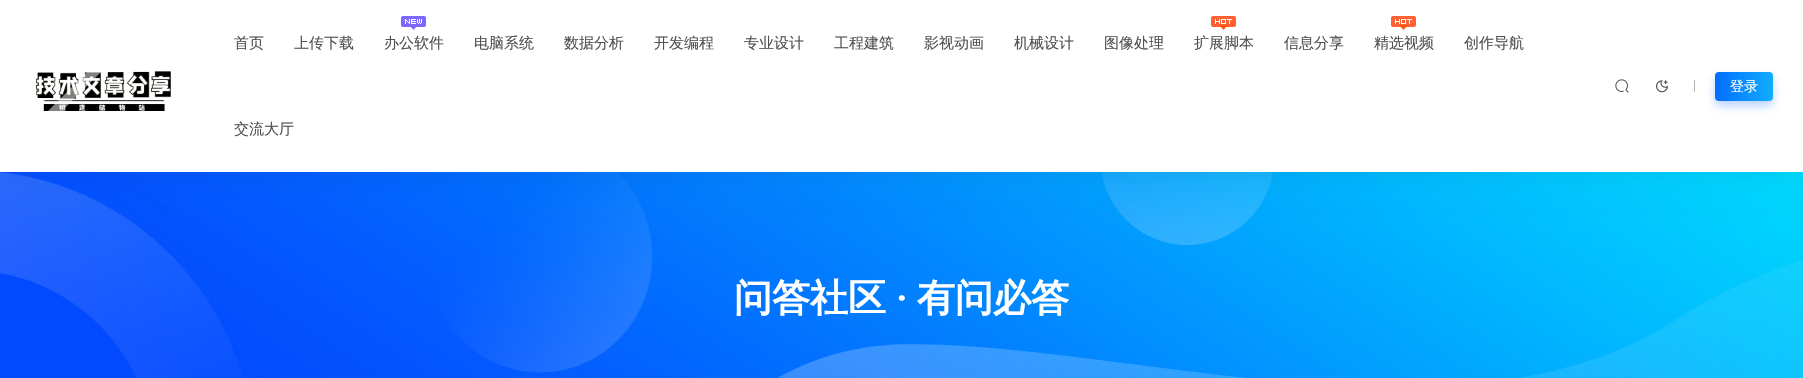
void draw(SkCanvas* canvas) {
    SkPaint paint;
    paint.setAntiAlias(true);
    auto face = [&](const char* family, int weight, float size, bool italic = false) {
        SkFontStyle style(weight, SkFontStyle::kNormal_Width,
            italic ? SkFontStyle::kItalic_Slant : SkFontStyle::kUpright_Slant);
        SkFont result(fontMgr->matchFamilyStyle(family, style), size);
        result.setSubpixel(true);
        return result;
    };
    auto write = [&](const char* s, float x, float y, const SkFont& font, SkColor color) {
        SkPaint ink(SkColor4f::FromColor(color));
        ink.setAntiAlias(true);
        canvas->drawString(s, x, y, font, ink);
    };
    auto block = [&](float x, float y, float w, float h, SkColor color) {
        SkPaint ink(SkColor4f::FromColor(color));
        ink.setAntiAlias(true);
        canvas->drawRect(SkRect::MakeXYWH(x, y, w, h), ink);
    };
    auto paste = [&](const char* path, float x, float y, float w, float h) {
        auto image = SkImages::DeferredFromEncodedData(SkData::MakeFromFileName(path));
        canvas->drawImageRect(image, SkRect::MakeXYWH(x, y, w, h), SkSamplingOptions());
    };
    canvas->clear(SK_ColorWHITE);
    paste("pic6.png", 0, 172, 1803, 206);
    paint.setColor(SkColorSetARGB(18, 0, 0, 0));
    paint.setMaskFilter(SkMaskFilter::MakeBlur(kNormal_SkBlurStyle, 15));
    canvas->drawRect(SkRect::MakeXYWH(0, 0, 1803, 172), paint);
    paint.setMaskFilter(nullptr);
    block(0, 0, 1803, 172, SK_ColorWHITE);
    paste("pic1.png", 35, 71, 136, 40);
    paint.setColor(SkColorSetARGB(128, 255, 255, 255));
    canvas->drawPath(SkPathBuilder().moveTo(47, 112).lineTo(145, 14).lineTo(152, 21).lineTo(54, 119).close().detach(), paint);
    auto kFont1 = face("WenQuanYi Zen Hei", 500, 15);
    write("首页", 234, 48, kFont1, SkColorSetRGB(80, 80, 80));
    write("上传下载", 294, 48, kFont1, SkColorSetRGB(80, 80, 80));
    paste("pic2.png", 401, 16, 25, 14);
    write("办公软件", 384, 48, kFont1, SkColorSetRGB(80, 80, 80));
    write("电脑系统", 474, 48, kFont1, SkColorSetRGB(80, 80, 80));
    write("数据分析", 564, 48, kFont1, SkColorSetRGB(80, 80, 80));
    write("开发编程", 654, 48, kFont1, SkColorSetRGB(80, 80, 80));
    write("专业设计", 744, 48, kFont1, SkColorSetRGB(80, 80, 80));
    write("工程建筑", 834, 48, kFont1, SkColorSetRGB(80, 80, 80));
    write("影视动画", 924, 48, kFont1, SkColorSetRGB(80, 80, 80));
    write("机械设计", 1014, 48, kFont1, SkColorSetRGB(80, 80, 80));
    write("图像处理", 1104, 48, kFont1, SkColorSetRGB(80, 80, 80));
    paste("pic3.png", 1211, 16, 25, 14);
    write("扩展脚本", 1194, 48, kFont1, SkColorSetRGB(80, 80, 80));
    write("信息分享", 1284, 48, kFont1, SkColorSetRGB(80, 80, 80));
    paste("pic3.png", 1391, 16, 25, 14);
    write("精选视频", 1374, 48, kFont1, SkColorSetRGB(80, 80, 80));
    write("创作导航", 1464, 48, kFont1, SkColorSetRGB(80, 80, 80));
    write("交流大厅", 234, 134, kFont1, SkColorSetRGB(80, 80, 80));
    paste("pic4.png", 1615, 79, 14, 14);
    paste("pic5.png", 1656, 80, 12, 13);
    block(1694, 80, 1, 12, SkColorSetRGB(179, 179, 179));
    paint.setColor(SkColorSetARGB(77, 16, 110, 253));
    paint.setMaskFilter(SkMaskFilter::MakeBlur(kNormal_SkBlurStyle, 5));
    canvas->drawRoundRect(SkRect::MakeXYWH(1715, 77, 58, 29), 4, 4, paint);
    paint.setMaskFilter(nullptr);
    {
        const SkColor colors[] = {SkColorSetRGB(0, 110, 255), SkColorSetRGB(19, 173, 255)};
        const float stops[] = {0, 1};
        const SkPoint ends[] = {{1715, 87}, {1773, 87}};
        paint.setShader(SkGradientShader::MakeLinear(ends, colors, stops, 2, SkTileMode::kClamp));
        paint.setAlpha(255);
    }
    canvas->drawRoundRect(SkRect::MakeXYWH(1715, 72, 58, 29), 4, 4, paint);
    auto kFont2 = face("WenQuanYi Zen Hei", 500, 14);
    write("登录", 1730, 91, kFont2, SK_ColorWHITE);
    auto kFont3 = face("WenQuanYi Zen Hei", 700, 38);
    write("问答社区", 734, 311, kFont3, SK_ColorWHITE);
    auto kFont4 = face("Roboto", 700, 38, true);
    write("·", 896, 311, kFont4, SK_ColorWHITE);
    write("有问必答", 917, 311, kFont3, SK_ColorWHITE);
}
